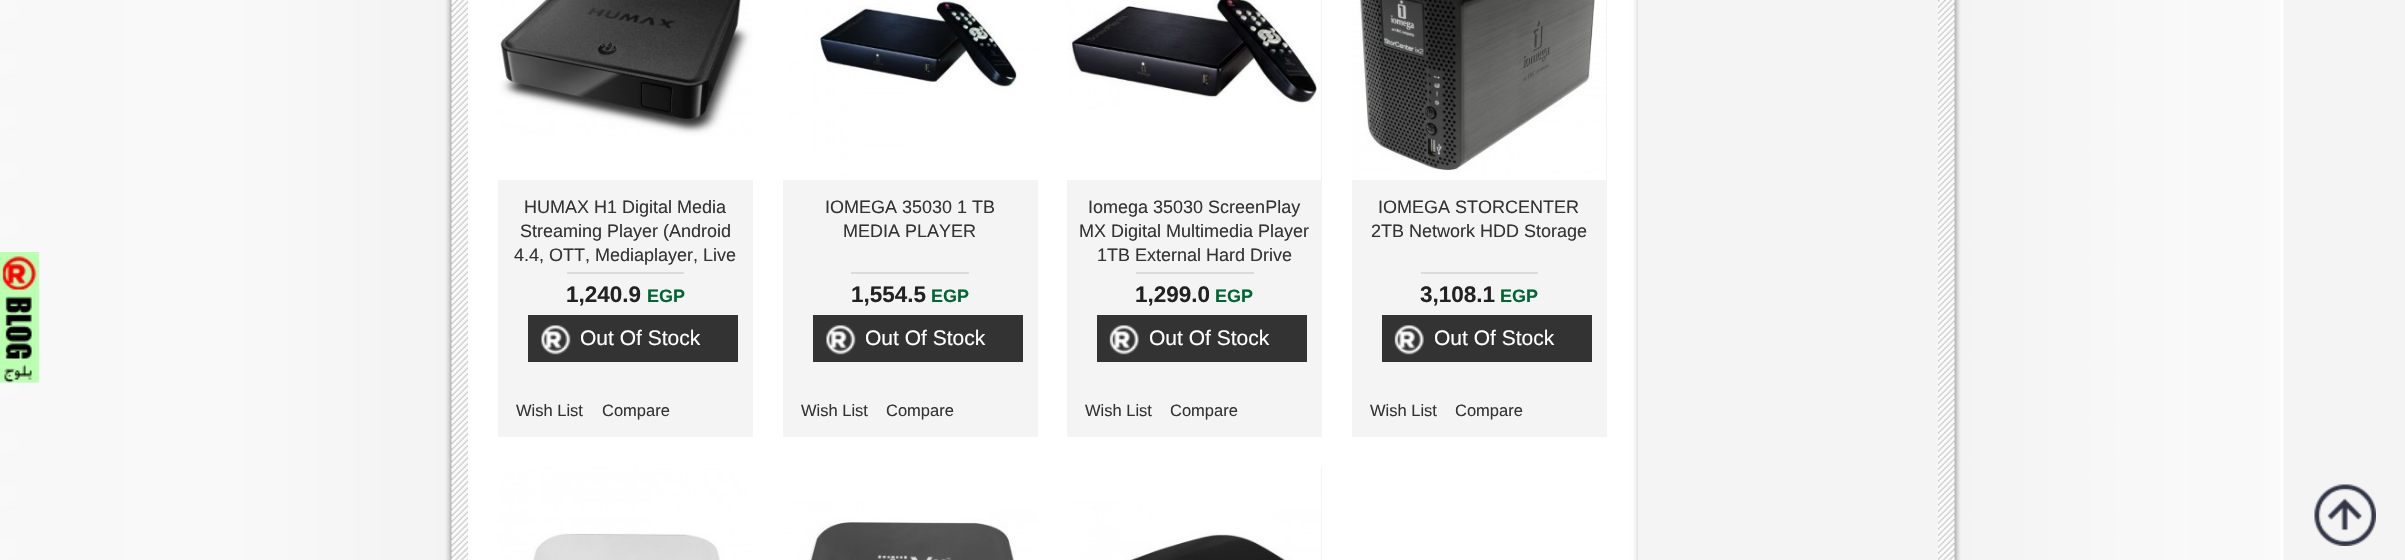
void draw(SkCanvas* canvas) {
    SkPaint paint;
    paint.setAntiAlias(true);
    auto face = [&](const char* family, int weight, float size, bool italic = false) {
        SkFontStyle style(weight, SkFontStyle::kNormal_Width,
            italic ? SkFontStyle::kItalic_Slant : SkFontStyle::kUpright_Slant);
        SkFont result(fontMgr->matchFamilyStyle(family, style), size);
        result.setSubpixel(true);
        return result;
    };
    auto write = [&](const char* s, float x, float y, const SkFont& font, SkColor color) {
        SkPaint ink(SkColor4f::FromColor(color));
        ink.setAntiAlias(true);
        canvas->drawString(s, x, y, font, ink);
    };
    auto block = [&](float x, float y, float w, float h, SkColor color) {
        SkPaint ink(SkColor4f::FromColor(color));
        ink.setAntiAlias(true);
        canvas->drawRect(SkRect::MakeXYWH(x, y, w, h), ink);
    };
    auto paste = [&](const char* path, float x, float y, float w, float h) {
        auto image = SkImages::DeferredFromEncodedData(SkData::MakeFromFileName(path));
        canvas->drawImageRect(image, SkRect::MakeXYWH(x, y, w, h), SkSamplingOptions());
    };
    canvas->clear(SkColorSetRGB(244, 244, 244));
    paste("pic1.png", 0, 0, 2284, 560);
    block(468, 0, 70, 560, SK_ColorWHITE);
    paste("pic2.png", 0, 252, 40, 131);
    block(498, 180, 255, 257, SkColorSetRGB(244, 244, 244));
    paste("pic3.png", 498, 0, 255, 180);
    auto kFont1 = face("Liberation Sans", 400, 18);
    write("HUMAX H1 Digital Media", 524, 213, kFont1, SkColorSetRGB(51, 51, 51));
    write("Streaming Player (Android", 520, 237, kFont1, SkColorSetRGB(51, 51, 51));
    write("4.4, OTT, Mediaplayer, Live", 514, 261, kFont1, SkColorSetRGB(51, 51, 51));
    block(567, 272, 117, 2, SkColorSetRGB(219, 219, 219));
    auto kFont2 = face("Liberation Sans", 700, 22.5f);
    write("1,240.9", 566, 302, kFont2, SkColorSetRGB(34, 34, 34));
    auto kFont3 = face("Liberation Sans", 700, 18);
    write("EGP", 647, 302, kFont3, SkColorSetRGB(0, 102, 51));
    block(528, 315, 210, 47, SkColorSetRGB(51, 51, 51));
    paste("pic4.png", 541, 325, 30, 30);
    auto kFont4 = face("Liberation Sans", 400, 21);
    write("Out Of Stock", 580, 345, kFont4, SK_ColorWHITE);
    auto kFont5 = face("Liberation Sans", 400, 16.5f);
    write("Wish List", 516, 416, kFont5, SkColorSetRGB(51, 51, 51));
    write("Compare", 602, 416, kFont5, SkColorSetRGB(51, 51, 51));
    block(783, 180, 255, 257, SkColorSetRGB(244, 244, 244));
    paste("pic5.png", 783, 0, 255, 180);
    write("IOMEGA 35030 1 TB", 825, 213, kFont1, SkColorSetRGB(51, 51, 51));
    write("MEDIA PLAYER", 843, 237, kFont1, SkColorSetRGB(51, 51, 51));
    block(851, 272, 118, 2, SkColorSetRGB(219, 219, 219));
    write("1,554.5", 851, 302, kFont2, SkColorSetRGB(34, 34, 34));
    write("EGP", 931, 302, kFont3, SkColorSetRGB(0, 102, 51));
    block(813, 315, 210, 47, SkColorSetRGB(51, 51, 51));
    paste("pic6.png", 826, 325, 30, 30);
    write("Out Of Stock", 865, 345, kFont4, SK_ColorWHITE);
    write("Wish List", 801, 416, kFont5, SkColorSetRGB(51, 51, 51));
    write("Compare", 886, 416, kFont5, SkColorSetRGB(51, 51, 51));
    block(1067, 0, 255, 437, SkColorSetRGB(244, 244, 244));
    paste("pic7.png", 1067, 0, 254, 180);
    write("Iomega 35030 ScreenPlay", 1088, 213, kFont1, SkColorSetRGB(51, 51, 51));
    write("MX Digital Multimedia Player", 1079, 237, kFont1, SkColorSetRGB(51, 51, 51));
    write("1TB External Hard Drive", 1097, 261, kFont1, SkColorSetRGB(51, 51, 51));
    block(1136, 272, 118, 2, SkColorSetRGB(219, 219, 219));
    write("1,299.0", 1135, 302, kFont2, SkColorSetRGB(34, 34, 34));
    write("EGP", 1215, 302, kFont3, SkColorSetRGB(0, 102, 51));
    block(1097, 315, 210, 47, SkColorSetRGB(51, 51, 51));
    paste("pic8.png", 1109, 325, 30, 30);
    write("Out Of Stock", 1149, 345, kFont4, SK_ColorWHITE);
    write("Wish List", 1085, 416, kFont5, SkColorSetRGB(51, 51, 51));
    write("Compare", 1170, 416, kFont5, SkColorSetRGB(51, 51, 51));
    block(1352, 0, 255, 437, SkColorSetRGB(244, 244, 244));
    paste("pic9.png", 1352, 0, 254, 180);
    write("IOMEGA STORCENTER", 1378, 213, kFont1, SkColorSetRGB(51, 51, 51));
    write("2TB Network HDD Storage", 1371, 237, kFont1, SkColorSetRGB(51, 51, 51));
    block(1421, 272, 117, 2, SkColorSetRGB(219, 219, 219));
    write("3,108.1", 1420, 302, kFont2, SkColorSetRGB(34, 34, 34));
    write("EGP", 1500, 302, kFont3, SkColorSetRGB(0, 102, 51));
    block(1382, 315, 210, 47, SkColorSetRGB(51, 51, 51));
    paste("pic10.png", 1394, 325, 30, 30);
    write("Out Of Stock", 1434, 345, kFont4, SK_ColorWHITE);
    write("Wish List", 1370, 416, kFont5, SkColorSetRGB(51, 51, 51));
    write("Compare", 1455, 416, kFont5, SkColorSetRGB(51, 51, 51));
    paste("pic11.png", 498, 467, 255, 93);
    paste("pic12.png", 783, 467, 255, 93);
    block(1321, 467, 1, 93, SkColorSetRGB(244, 244, 244));
    paste("pic13.png", 1067, 467, 254, 93);
    canvas->save();
    canvas->clipRect(SkRect::MakeXYWH(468, 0, 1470, 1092));
    paint.setColor(SK_ColorBLACK);
    paint.setMaskFilter(SkMaskFilter::MakeBlur(kNormal_SkBlurStyle, 5));
    canvas->drawRect(SkRect::MakeXYWH(1644, -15, 291, 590), paint);
    paint.setMaskFilter(nullptr);
    canvas->restore();
    block(1638, 0, 300, 560, SkColorSetRGB(244, 244, 244));
    paste("pic14.png", 2314, 484, 62, 62);
}
